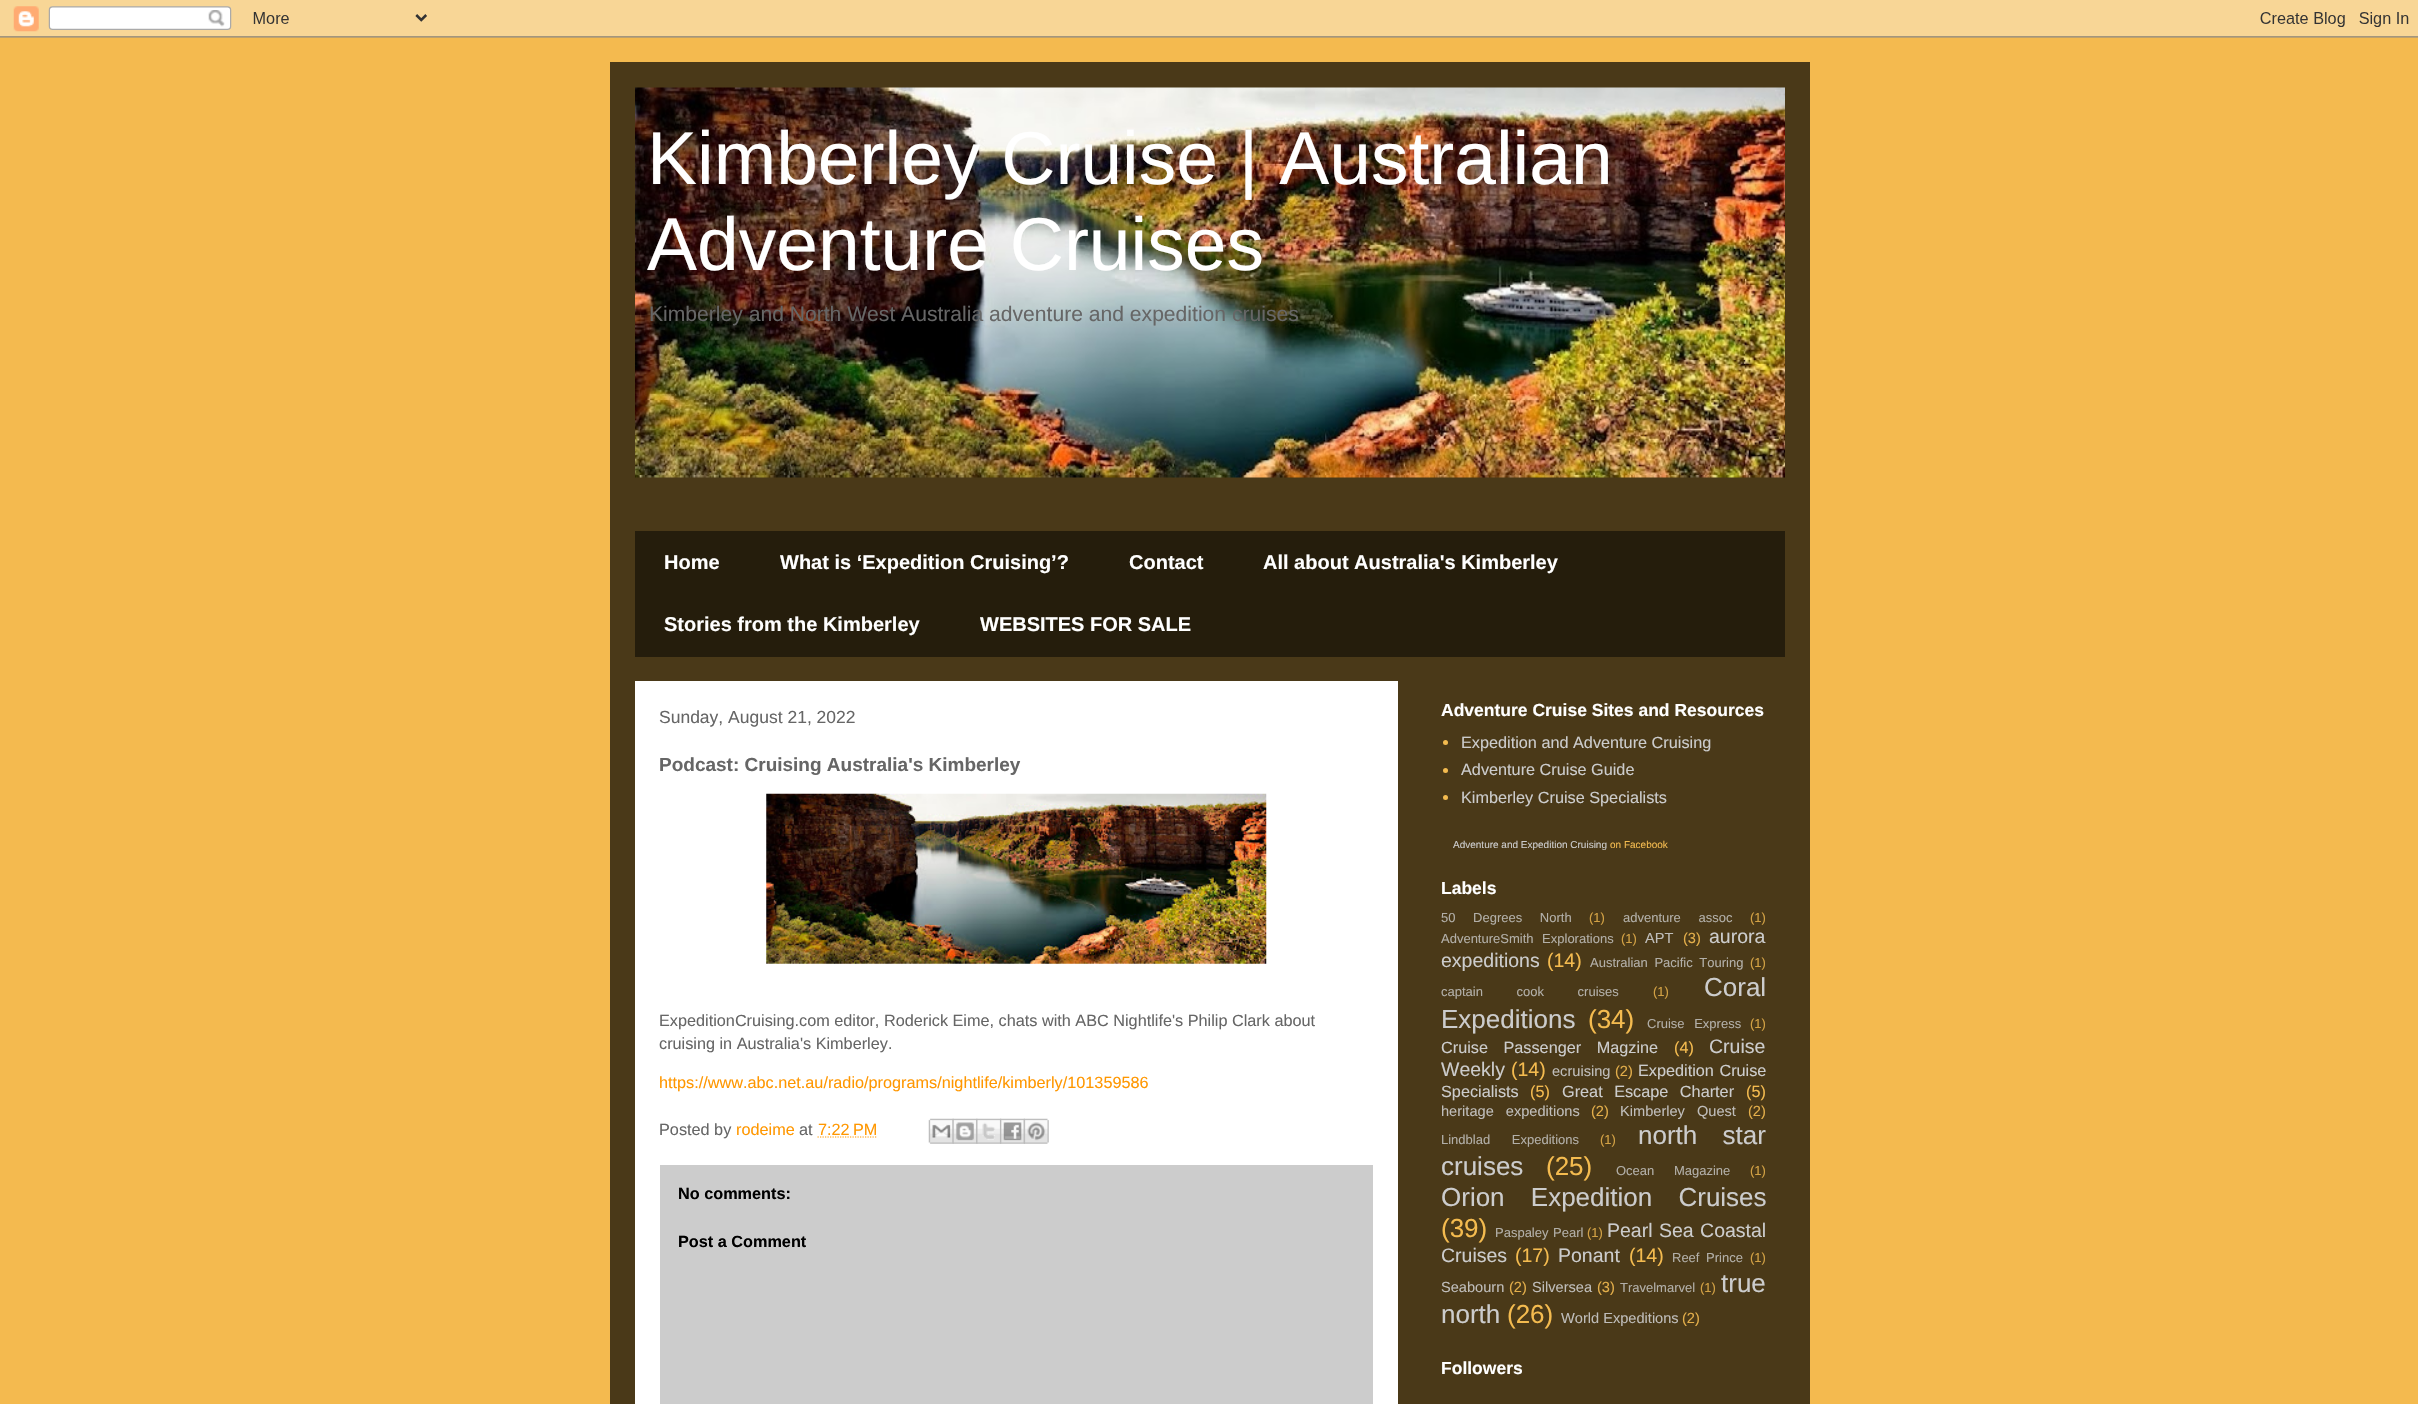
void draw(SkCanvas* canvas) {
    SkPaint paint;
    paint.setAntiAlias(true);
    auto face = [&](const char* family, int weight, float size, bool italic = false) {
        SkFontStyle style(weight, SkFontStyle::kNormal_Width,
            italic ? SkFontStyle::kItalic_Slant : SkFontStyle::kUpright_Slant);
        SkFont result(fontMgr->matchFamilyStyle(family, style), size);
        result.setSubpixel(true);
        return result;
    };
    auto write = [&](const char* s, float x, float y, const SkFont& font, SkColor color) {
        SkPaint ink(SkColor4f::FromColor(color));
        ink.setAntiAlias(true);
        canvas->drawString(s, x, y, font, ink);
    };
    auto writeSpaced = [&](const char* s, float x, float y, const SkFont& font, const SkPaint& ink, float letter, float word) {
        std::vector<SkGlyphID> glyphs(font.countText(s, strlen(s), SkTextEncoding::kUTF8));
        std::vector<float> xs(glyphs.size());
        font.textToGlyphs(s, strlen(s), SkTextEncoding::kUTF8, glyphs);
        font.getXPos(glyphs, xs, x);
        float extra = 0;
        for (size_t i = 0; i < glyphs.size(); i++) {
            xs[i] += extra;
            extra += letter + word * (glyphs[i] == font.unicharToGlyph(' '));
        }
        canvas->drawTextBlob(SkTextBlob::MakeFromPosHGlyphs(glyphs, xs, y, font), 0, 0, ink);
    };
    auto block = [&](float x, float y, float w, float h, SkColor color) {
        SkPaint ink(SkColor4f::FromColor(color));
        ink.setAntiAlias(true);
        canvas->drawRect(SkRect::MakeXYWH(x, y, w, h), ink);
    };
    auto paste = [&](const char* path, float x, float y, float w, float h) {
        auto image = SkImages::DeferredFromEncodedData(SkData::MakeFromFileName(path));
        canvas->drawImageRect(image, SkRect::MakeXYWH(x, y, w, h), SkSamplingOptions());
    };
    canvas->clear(SkColorSetRGB(244, 186, 79));
    paste("pic1.png", 0, 0, 2418, 38);
    block(610, 62, 1200, 1342, SkColorSetRGB(74, 57, 24));
    paste("pic2.png", 635, 87, 1150, 391);
    auto kFont1 = face("Liberation Sans", 400, 75);
    write("Kimberley Cruise | Australian", 647, 184, kFont1, SK_ColorWHITE);
    write("Adventure Cruises", 647, 270, kFont1, SK_ColorWHITE);
    auto kFont2 = face("Liberation Sans", 400, 21.1f);
    write("Kimberley and North West Australia adventure and expedition cruises", 649, 321, kFont2, SkColorSetRGB(102, 102, 102));
    block(635, 531, 1150, 126, SkColorSetRGB(37, 29, 12));
    auto kFont3 = face("Liberation Sans", 700, 20);
    write("Home", 664, 569, kFont3, SK_ColorWHITE);
    write("What is ‘Expedition Cruising’?", 780, 569, kFont3, SK_ColorWHITE);
    write("Contact", 1129, 569, kFont3, SK_ColorWHITE);
    write("All about Australia's Kimberley", 1263, 569, kFont3, SK_ColorWHITE);
    write("Stories from the Kimberley", 664, 631, kFont3, SK_ColorWHITE);
    write("WEBSITES FOR SALE", 980, 631, kFont3, SK_ColorWHITE);
    block(635, 681, 763, 723, SK_ColorWHITE);
    auto kFont4 = face("Liberation Sans", 400, 17.5f);
    write("Sunday, August 21, 2022", 659, 723, kFont4, SkColorSetRGB(102, 102, 102));
    auto kFont5 = face("Liberation Sans", 700, 19);
    write("Podcast: Cruising Australia's Kimberley", 659, 771, kFont5, SkColorSetRGB(102, 102, 102));
    paste("pic3.png", 766, 793, 501, 171);
    auto kFont6 = face("Liberation Sans", 400, 16.25f);
    write("ExpeditionCruising.com editor, Roderick Eime, chats with ABC Nightlife's Philip Clark about", 659, 1026, kFont6, SkColorSetRGB(102, 102, 102));
    write("cruising in Australia's Kimberley.", 659, 1049, kFont6, SkColorSetRGB(102, 102, 102));
    write("https://www.abc.net.au/radio/programs/nightlife/kimberly/101359586", 659, 1088, kFont6, SkColorSetRGB(255, 151, 0));
    write("Posted by", 659, 1135, kFont6, SkColorSetRGB(102, 102, 102));
    write("rodeime", 736, 1135, kFont6, SkColorSetRGB(255, 151, 0));
    write("at", 799, 1135, kFont6, SkColorSetRGB(102, 102, 102));
    write("7:22 PM", 818, 1135, kFont6, SkColorSetRGB(255, 151, 0));
    paint.setStyle(SkPaint::kStroke_Style);
    paint.setStrokeWidth(1.2f);
    paint.setColor(SkColorSetRGB(255, 151, 0));
    paint.setPathEffect(SkDashPathEffect::Make({{1.25f, 1.25f}}, 0));
    canvas->drawPath(SkPathBuilder().moveTo(817.5f, 1137).lineTo(877, 1137).detach(), paint);
    paint.setPathEffect(nullptr);
    paste("pic4.png", 928, 1118, 26, 26);
    paste("pic5.png", 952, 1118, 26, 26);
    paste("pic6.png", 976, 1118, 26, 26);
    paste("pic7.png", 1000, 1118, 25, 26);
    paste("pic8.png", 1023, 1118, 26, 26);
    block(660, 1165, 713, 239, SkColorSetRGB(204, 204, 204));
    auto kFont7 = face("Liberation Sans", 700, 16.25f);
    write("No comments:", 678, 1199, kFont7, SK_ColorBLACK);
    write("Post a Comment", 678, 1247, kFont7, SK_ColorBLACK);
    auto kFont8 = face("Liberation Sans", 700, 17.5f);
    write("Adventure Cruise Sites and Resources", 1441, 716, kFont8, SK_ColorWHITE);
    paint.setStyle(SkPaint::kFill_Style);
    paint.setColor(SkColorSetRGB(244, 187, 79));
    canvas->drawCircle(1445.5f, 742.5f, 2.5f, paint);
    write("Expedition and Adventure Cruising", 1461, 748, kFont6, SkColorSetRGB(204, 204, 204));
    canvas->drawCircle(1445.5f, 770.5f, 2.5f, paint);
    write("Adventure Cruise Guide", 1461, 775, kFont6, SkColorSetRGB(204, 204, 204));
    canvas->drawCircle(1445.5f, 797.5f, 2.5f, paint);
    write("Kimberley Cruise Specialists", 1461, 803, kFont6, SkColorSetRGB(204, 204, 204));
    auto kFont9 = face("Liberation Sans", 400, 10);
    write("Adventure and Expedition Cruising", 1453, 848, kFont9, SkColorSetRGB(204, 204, 204));
    write("on Facebook", 1610, 848, kFont9, SkColorSetRGB(244, 187, 79));
    write("Labels", 1441, 894, kFont8, SK_ColorWHITE);
    auto kFont10 = face("Liberation Sans", 400, 13);
    paint.setColor(SkColorSetRGB(178, 175, 168));
    writeSpaced("50 Degrees North", 1441, 922, kFont10, paint, 0, 14);
    write("(1)", 1589, 922, kFont10, SkColorSetRGB(210, 161, 68));
    writeSpaced("adventure assoc", 1623, 922, kFont10, paint, 0, 14);
    write("(1)", 1750, 922, kFont10, SkColorSetRGB(210, 161, 68));
    writeSpaced("AdventureSmith Explorations", 1441, 943, kFont10, paint, 0, 5);
    write("(1)", 1621, 943, kFont10, SkColorSetRGB(210, 161, 68));
    auto kFont11 = face("Liberation Sans", 400, 14.6f);
    write("APT", 1645, 943, kFont11, SkColorSetRGB(191, 189, 186));
    write("(3)", 1683, 943, kFont11, SkColorSetRGB(227, 174, 74));
    auto kFont12 = face("Liberation Sans", 400, 19.5f);
    write("aurora", 1709, 943, kFont12, SkColorSetRGB(204, 204, 204));
    write("expeditions", 1441, 967, kFont12, SkColorSetRGB(204, 204, 204));
    write("(14)", 1547, 967, kFont12, SkColorSetRGB(244, 187, 79));
    writeSpaced("Australian Pacific Touring", 1590, 967, kFont10, paint, 0, 3);
    write("(1)", 1750, 967, kFont10, SkColorSetRGB(210, 161, 68));
    writeSpaced("captain cook cruises", 1441, 996, kFont10, paint, 0, 30);
    write("(1)", 1653, 996, kFont10, SkColorSetRGB(210, 161, 68));
    auto kFont13 = face("Liberation Sans", 400, 26);
    write("Coral", 1704, 996, kFont13, SkColorSetRGB(204, 204, 204));
    write("Expeditions", 1441, 1028, kFont13, SkColorSetRGB(204, 204, 204));
    write("(34)", 1588, 1028, kFont13, SkColorSetRGB(244, 187, 79));
    writeSpaced("Cruise Express", 1647, 1028, kFont10, paint, 0, 6);
    write("(1)", 1750, 1028, kFont10, SkColorSetRGB(210, 161, 68));
    paint.setColor(SkColorSetRGB(204, 204, 204));
    writeSpaced("Cruise Passenger Magzine", 1441, 1053, kFont6, paint, 0, 11);
    write("(4)", 1674, 1053, kFont6, SkColorSetRGB(244, 187, 79));
    write("Cruise", 1709, 1053, kFont12, SkColorSetRGB(204, 204, 204));
    write("Weekly", 1441, 1076, kFont12, SkColorSetRGB(204, 204, 204));
    write("(14)", 1511, 1076, kFont12, SkColorSetRGB(244, 187, 79));
    write("ecruising", 1552, 1076, kFont11, SkColorSetRGB(191, 189, 186));
    write("(2)", 1615, 1076, kFont11, SkColorSetRGB(227, 174, 74));
    writeSpaced("Expedition Cruise", 1638, 1076, kFont6, paint, 0, 1);
    write("Specialists", 1441, 1097, kFont6, SkColorSetRGB(204, 204, 204));
    write("(5)", 1530, 1097, kFont6, SkColorSetRGB(244, 187, 79));
    writeSpaced("Great Escape Charter", 1562, 1097, kFont6, paint, 0, 7);
    write("(5)", 1746, 1097, kFont6, SkColorSetRGB(244, 187, 79));
    paint.setColor(SkColorSetRGB(191, 189, 186));
    writeSpaced("heritage expeditions", 1441, 1116, kFont11, paint, 0, 8);
    write("(2)", 1591, 1116, kFont11, SkColorSetRGB(227, 174, 74));
    writeSpaced("Kimberley Quest", 1620, 1116, kFont11, paint, 0, 8);
    write("(2)", 1748, 1116, kFont11, SkColorSetRGB(227, 174, 74));
    paint.setColor(SkColorSetRGB(178, 175, 168));
    writeSpaced("Lindblad Expeditions", 1441, 1144, kFont10, paint, 0, 18);
    write("(1)", 1600, 1144, kFont10, SkColorSetRGB(210, 161, 68));
    paint.setColor(SkColorSetRGB(204, 204, 204));
    writeSpaced("north star", 1638, 1144, kFont13, paint, 0, 18);
    write("cruises", 1441, 1175, kFont13, SkColorSetRGB(204, 204, 204));
    write("(25)", 1546, 1175, kFont13, SkColorSetRGB(244, 187, 79));
    paint.setColor(SkColorSetRGB(178, 175, 168));
    writeSpaced("Ocean Magazine", 1616, 1175, kFont10, paint, 0, 16);
    write("(1)", 1750, 1175, kFont10, SkColorSetRGB(210, 161, 68));
    paint.setColor(SkColorSetRGB(204, 204, 204));
    writeSpaced("Orion Expedition Cruises", 1441, 1206, kFont13, paint, 0, 19);
    write("(39)", 1441, 1237, kFont13, SkColorSetRGB(244, 187, 79));
    paint.setColor(SkColorSetRGB(178, 175, 168));
    writeSpaced("Paspaley Pearl", 1495, 1237, kFont10, paint, 0, 1);
    write("(1)", 1587, 1237, kFont10, SkColorSetRGB(210, 161, 68));
    paint.setColor(SkColorSetRGB(204, 204, 204));
    writeSpaced("Pearl Sea Coastal", 1607, 1237, kFont12, paint, 0, 1);
    write("Cruises", 1441, 1262, kFont12, SkColorSetRGB(204, 204, 204));
    write("(17)", 1515, 1262, kFont12, SkColorSetRGB(244, 187, 79));
    write("Ponant", 1558, 1262, kFont12, SkColorSetRGB(204, 204, 204));
    write("(14)", 1629, 1262, kFont12, SkColorSetRGB(244, 187, 79));
    paint.setColor(SkColorSetRGB(178, 175, 168));
    writeSpaced("Reef Prince", 1672, 1262, kFont10, paint, 0, 3);
    write("(1)", 1750, 1262, kFont10, SkColorSetRGB(210, 161, 68));
    write("Seabourn", 1441, 1292, kFont11, SkColorSetRGB(191, 189, 186));
    write("(2)", 1509, 1292, kFont11, SkColorSetRGB(227, 174, 74));
    write("Silversea", 1532, 1292, kFont11, SkColorSetRGB(191, 189, 186));
    write("(3)", 1597, 1292, kFont11, SkColorSetRGB(227, 174, 74));
    write("Travelmarvel", 1620, 1292, kFont10, SkColorSetRGB(178, 175, 168));
    write("(1)", 1700, 1292, kFont10, SkColorSetRGB(210, 161, 68));
    write("true", 1721, 1292, kFont13, SkColorSetRGB(204, 204, 204));
    write("north", 1441, 1323, kFont13, SkColorSetRGB(204, 204, 204));
    write("(26)", 1507, 1323, kFont13, SkColorSetRGB(244, 187, 79));
    write("World Expeditions", 1561, 1323, kFont11, SkColorSetRGB(191, 189, 186));
    write("(2)", 1682, 1323, kFont11, SkColorSetRGB(227, 174, 74));
    write("Followers", 1441, 1374, kFont8, SK_ColorWHITE);
}
